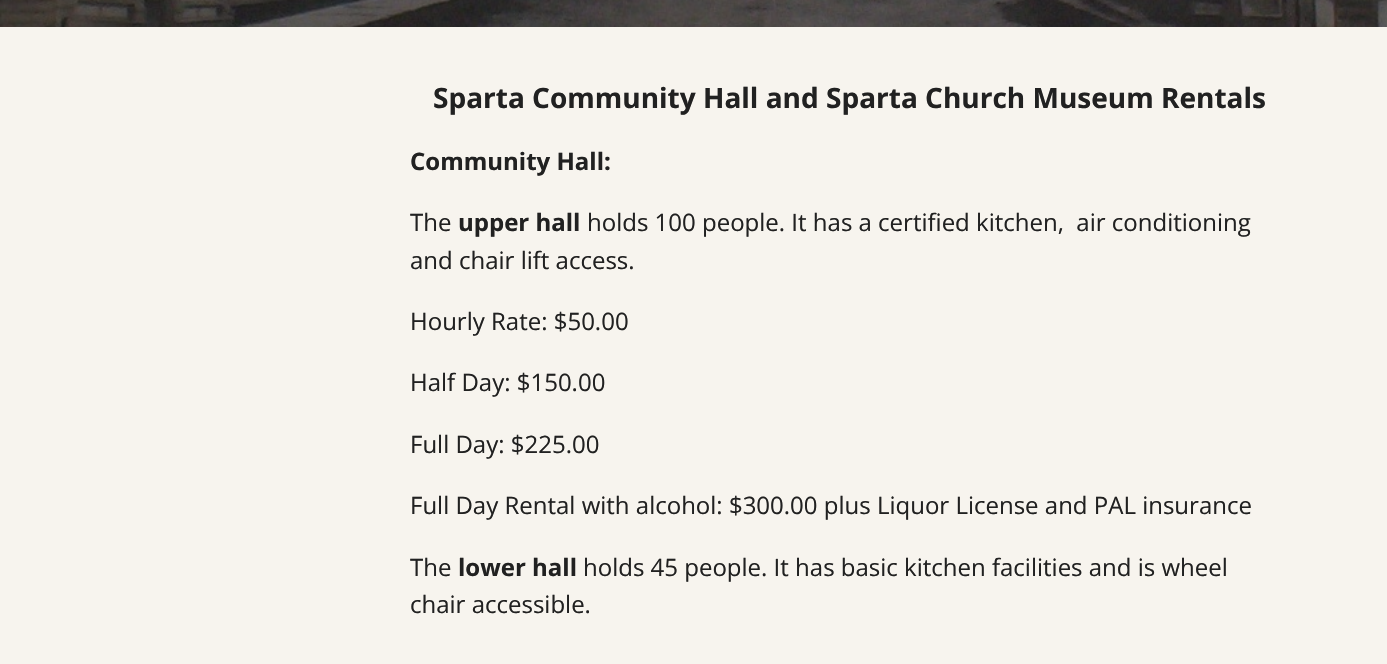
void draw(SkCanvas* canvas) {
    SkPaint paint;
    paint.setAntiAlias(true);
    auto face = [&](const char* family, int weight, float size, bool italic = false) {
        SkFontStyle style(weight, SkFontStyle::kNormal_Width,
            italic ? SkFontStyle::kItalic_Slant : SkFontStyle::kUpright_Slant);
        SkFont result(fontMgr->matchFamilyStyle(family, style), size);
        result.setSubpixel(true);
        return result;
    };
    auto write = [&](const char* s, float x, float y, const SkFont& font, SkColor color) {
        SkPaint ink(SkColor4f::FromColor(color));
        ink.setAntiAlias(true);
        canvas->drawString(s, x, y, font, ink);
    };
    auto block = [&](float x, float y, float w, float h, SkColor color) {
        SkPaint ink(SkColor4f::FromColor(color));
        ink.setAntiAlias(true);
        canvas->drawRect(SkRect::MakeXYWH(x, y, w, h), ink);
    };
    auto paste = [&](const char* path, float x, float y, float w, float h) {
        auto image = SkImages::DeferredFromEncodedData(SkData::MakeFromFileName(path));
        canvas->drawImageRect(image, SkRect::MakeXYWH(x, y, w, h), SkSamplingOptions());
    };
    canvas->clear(SK_ColorWHITE);
    paste("pic1.png", 0, 0, 1387, 27);
    block(0, 27, 1387, 637, SkColorSetRGB(247, 244, 238));
    auto kFont1 = face("Open Sans", 700, 28);
    write("Sparta Community Hall and Sparta Church Museum Rentals", 433, 108, kFont1, SkColorSetRGB(33, 33, 33));
    auto kFont2 = face("Open Sans", 700, 24);
    write("Community Hall:", 410, 170, kFont2, SkColorSetRGB(33, 33, 33));
    auto kFont3 = face("Open Sans", 400, 24);
    write("The", 410, 231, kFont3, SkColorSetRGB(33, 33, 33));
    write("upper hall", 458, 231, kFont2, SkColorSetRGB(33, 33, 33));
    write("holds 100 people. It has a certified kitchen,  air conditioning", 587, 231, kFont3, SkColorSetRGB(33, 33, 33));
    write("and chair lift access.", 410, 269, kFont3, SkColorSetRGB(33, 33, 33));
    write("Hourly Rate: $50.00", 410, 330, kFont3, SkColorSetRGB(33, 33, 33));
    write("Half Day: $150.00", 410, 391, kFont3, SkColorSetRGB(33, 33, 33));
    write("Full Day: $225.00", 410, 453, kFont3, SkColorSetRGB(33, 33, 33));
    write("Full Day Rental with alcohol: $300.00 plus Liquor License and PAL insurance", 410, 514, kFont3, SkColorSetRGB(33, 33, 33));
    write("The", 410, 576, kFont3, SkColorSetRGB(33, 33, 33));
    write("lower hall", 458, 576, kFont2, SkColorSetRGB(33, 33, 33));
    write("holds 45 people. It has basic kitchen facilities and is wheel", 583, 576, kFont3, SkColorSetRGB(33, 33, 33));
    write("chair accessible.", 410, 613, kFont3, SkColorSetRGB(33, 33, 33));
}
